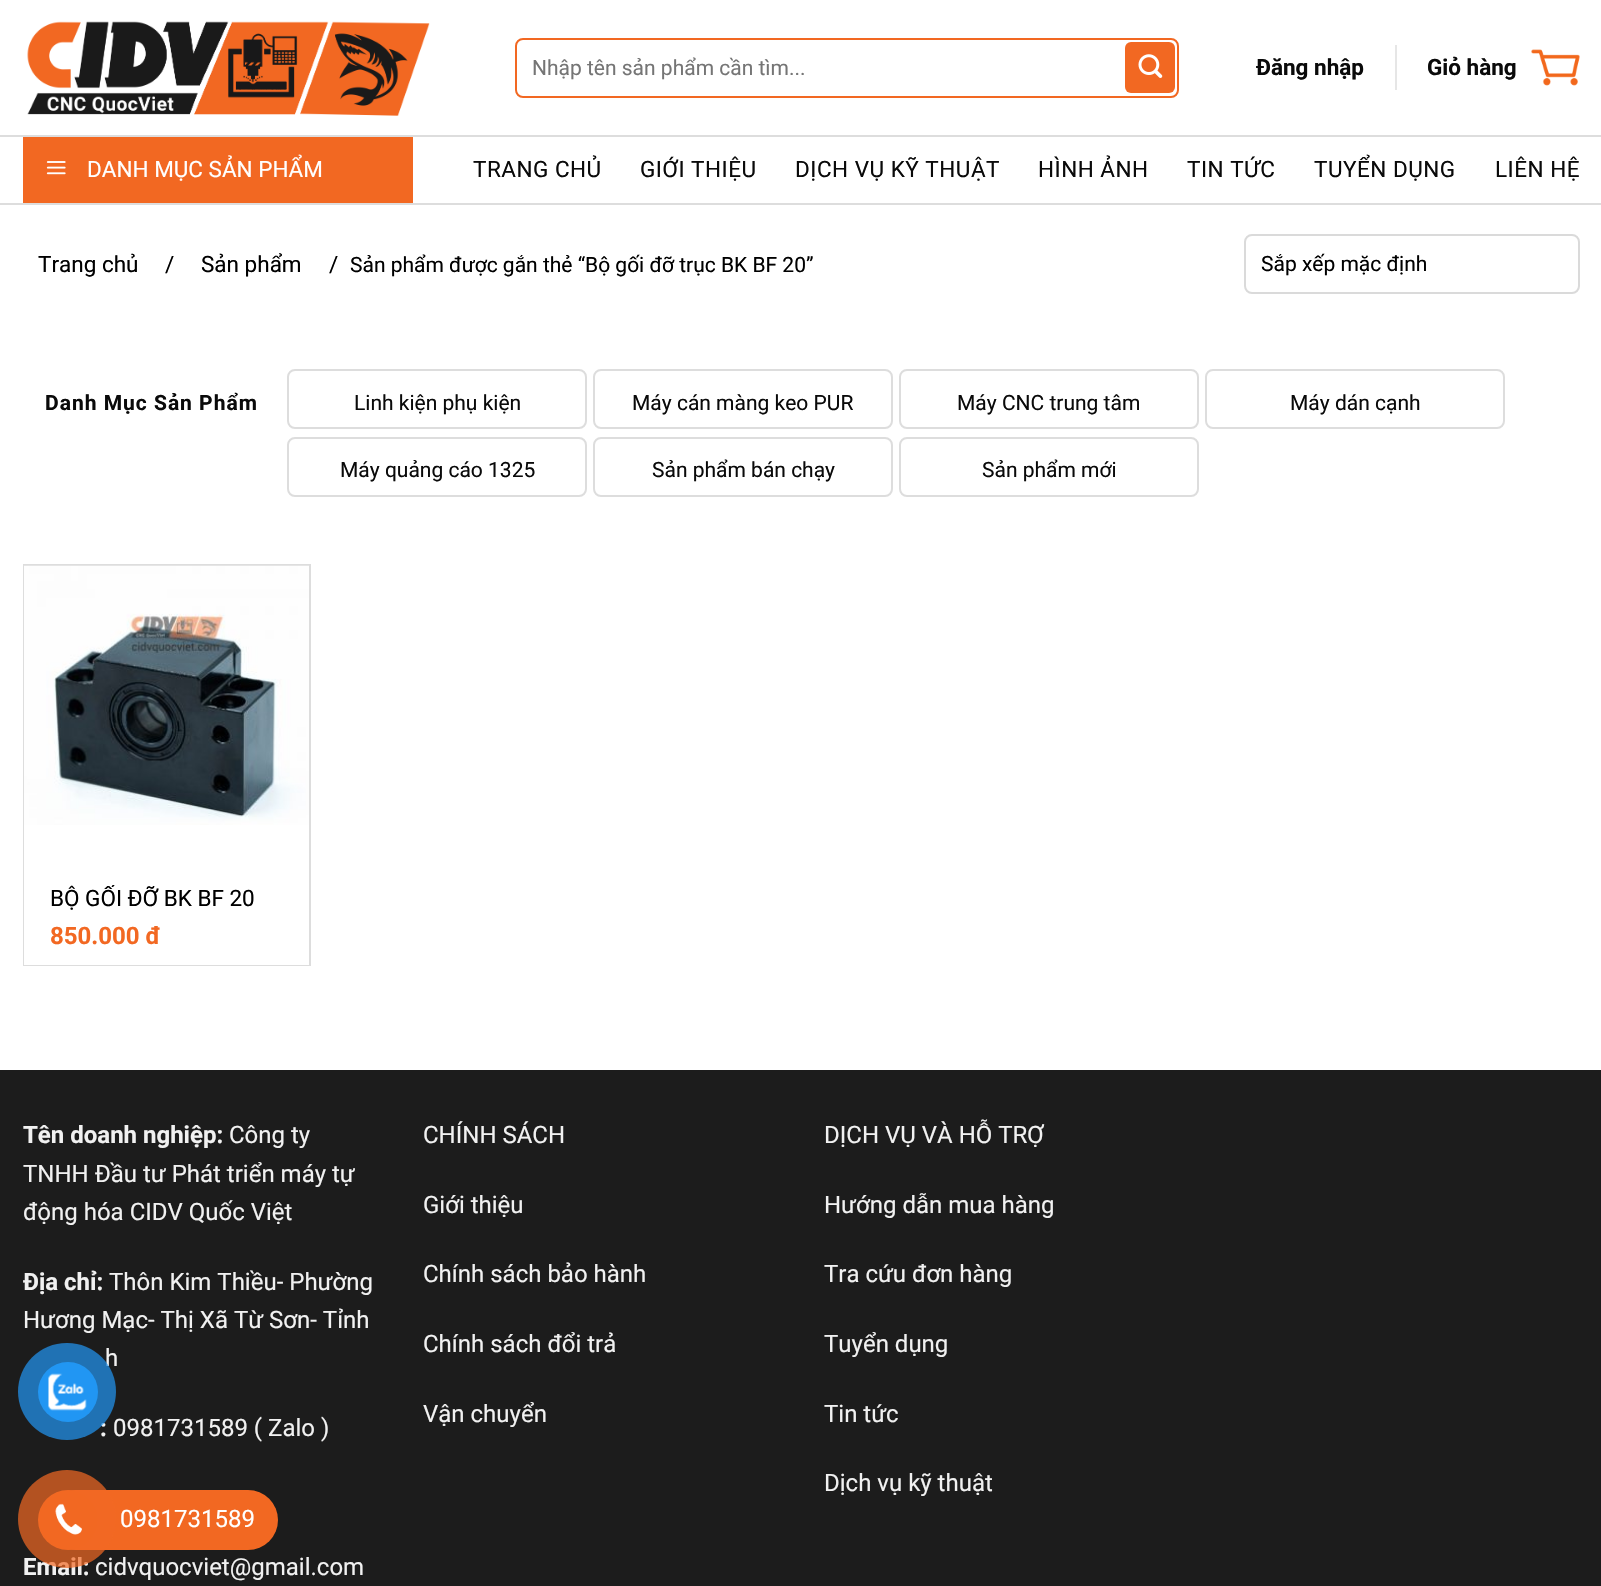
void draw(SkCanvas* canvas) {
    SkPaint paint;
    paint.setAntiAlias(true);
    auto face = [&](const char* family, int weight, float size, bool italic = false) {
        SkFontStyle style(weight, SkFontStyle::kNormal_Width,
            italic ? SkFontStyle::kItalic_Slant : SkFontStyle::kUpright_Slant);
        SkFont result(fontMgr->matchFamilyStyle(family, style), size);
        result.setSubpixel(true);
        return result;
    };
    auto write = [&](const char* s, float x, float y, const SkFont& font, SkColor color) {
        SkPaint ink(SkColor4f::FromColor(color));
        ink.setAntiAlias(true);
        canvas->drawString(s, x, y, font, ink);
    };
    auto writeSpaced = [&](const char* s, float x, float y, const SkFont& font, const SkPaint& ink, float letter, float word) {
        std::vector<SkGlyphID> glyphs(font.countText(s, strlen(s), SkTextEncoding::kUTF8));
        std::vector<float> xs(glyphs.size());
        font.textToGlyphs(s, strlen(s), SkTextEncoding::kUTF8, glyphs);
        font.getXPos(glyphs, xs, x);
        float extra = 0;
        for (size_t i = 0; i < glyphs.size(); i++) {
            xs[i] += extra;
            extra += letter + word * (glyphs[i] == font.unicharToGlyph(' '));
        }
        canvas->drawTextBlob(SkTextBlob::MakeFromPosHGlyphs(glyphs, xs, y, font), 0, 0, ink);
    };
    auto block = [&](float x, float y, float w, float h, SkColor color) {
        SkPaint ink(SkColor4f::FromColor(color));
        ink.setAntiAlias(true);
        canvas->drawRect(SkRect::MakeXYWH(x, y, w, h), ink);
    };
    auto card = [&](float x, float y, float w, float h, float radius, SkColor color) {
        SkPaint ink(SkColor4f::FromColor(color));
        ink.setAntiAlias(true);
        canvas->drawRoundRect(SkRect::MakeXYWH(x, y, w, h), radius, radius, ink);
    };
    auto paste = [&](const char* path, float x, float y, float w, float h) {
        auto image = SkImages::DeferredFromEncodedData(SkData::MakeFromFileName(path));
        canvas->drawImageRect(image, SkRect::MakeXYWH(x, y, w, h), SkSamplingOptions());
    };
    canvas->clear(SK_ColorWHITE);
    paste("pic1.png", 27, 21, 403, 95);
    paint.setStyle(SkPaint::kStroke_Style);
    paint.setStrokeWidth(2);
    paint.setColor(SkColorSetRGB(242, 104, 34));
    canvas->drawRoundRect(SkRect::MakeXYWH(516, 39, 662, 58), 7, 7, paint);
    auto kFont1 = face("Roboto", 400, 21);
    write("Nhập tên sản phẩm cần tìm...", 532, 75, kFont1, SkColorSetRGB(117, 117, 117));
    card(1125, 42, 50, 51, 6, SkColorSetRGB(242, 104, 34));
    paste("pic2.png", 1138, 54, 25, 24);
    auto kFont2 = face("Roboto", 700, 22.5f);
    write("Đăng nhập", 1256, 75, kFont2, SkColorSetRGB(10, 10, 10));
    block(1395, 45, 2, 45, SkColorSetRGB(230, 230, 230));
    write("Giỏ hàng", 1427, 75, kFont2, SkColorSetRGB(10, 10, 10));
    paste("pic3.png", 1531, 49, 49, 37);
    block(0, 135, 1601, 2, SkColorSetRGB(221, 221, 221));
    block(0, 203, 1601, 2, SkColorSetRGB(221, 221, 221));
    block(23, 137, 390, 66, SkColorSetRGB(242, 104, 34));
    paste("pic4.png", 46, 161, 20, 14);
    auto kFont3 = face("Roboto", 400, 22.5f);
    write("DANH MỤC SẢN PHẨM", 87, 177, kFont3, SK_ColorWHITE);
    paint.setStyle(SkPaint::kFill_Style);
    paint.setColor(SkColorSetRGB(10, 10, 10));
    writeSpaced("TRANG CHỦ", 473, 177, kFont3, paint, 0.5f, 0);
    writeSpaced("GIỚI THIỆU", 640, 177, kFont3, paint, 0.5f, 0);
    writeSpaced("DỊCH VỤ KỸ THUẬT", 795, 177, kFont3, paint, 0.5f, 0);
    writeSpaced("HÌNH ẢNH", 1038, 177, kFont3, paint, 0.5f, 0);
    writeSpaced("TIN TỨC", 1187, 177, kFont3, paint, 0.5f, 0);
    writeSpaced("TUYỂN DỤNG", 1314, 177, kFont3, paint, 0.5f, 0);
    writeSpaced("LIÊN HỆ", 1495, 177, kFont3, paint, 0.5f, 0);
    write("Trang chủ", 38, 272, kFont3, SK_ColorBLACK);
    write("/", 165, 272, kFont3, SK_ColorBLACK);
    write("Sản phẩm", 201, 272, kFont3, SK_ColorBLACK);
    write("/", 329, 272, kFont3, SK_ColorBLACK);
    write("Sản phẩm được gắn thẻ “Bộ gối đỡ trục BK BF 20”", 350, 272, kFont1, SK_ColorBLACK);
    paint.setStyle(SkPaint::kStroke_Style);
    paint.setColor(SkColorSetRGB(218, 218, 218));
    canvas->drawRoundRect(SkRect::MakeXYWH(1245, 235, 334, 58), 7, 7, paint);
    write("Sắp xếp mặc định", 1261, 271, kFont1, SK_ColorBLACK);
    auto kFont4 = face("Roboto", 700, 21);
    paint.setStyle(SkPaint::kFill_Style);
    paint.setColor(SkColorSetRGB(10, 10, 10));
    writeSpaced("Danh Mục Sản Phẩm", 45, 410, kFont4, paint, 1, 0);
    paint.setStyle(SkPaint::kStroke_Style);
    paint.setColor(SkColorSetRGB(221, 221, 221));
    canvas->drawRoundRect(SkRect::MakeXYWH(288, 370, 298, 58), 7, 7, paint);
    write("Linh kiện phụ kiện", 354, 410, kFont1, SkColorSetRGB(10, 10, 10));
    canvas->drawRoundRect(SkRect::MakeXYWH(594, 370, 298, 58), 7, 7, paint);
    write("Máy cán màng keo PUR", 632, 410, kFont1, SkColorSetRGB(10, 10, 10));
    canvas->drawRoundRect(SkRect::MakeXYWH(900, 370, 298, 58), 7, 7, paint);
    write("Máy CNC trung tâm", 957, 410, kFont1, SkColorSetRGB(10, 10, 10));
    canvas->drawRoundRect(SkRect::MakeXYWH(1206, 370, 298, 58), 7, 7, paint);
    write("Máy dán cạnh", 1290, 410, kFont1, SkColorSetRGB(10, 10, 10));
    canvas->drawRoundRect(SkRect::MakeXYWH(288, 438, 298, 58), 7, 7, paint);
    write("Máy quảng cáo 1325", 340, 477, kFont1, SkColorSetRGB(10, 10, 10));
    canvas->drawRoundRect(SkRect::MakeXYWH(594, 438, 298, 58), 7, 7, paint);
    write("Sản phẩm bán chạy", 652, 477, kFont1, SkColorSetRGB(10, 10, 10));
    canvas->drawRoundRect(SkRect::MakeXYWH(900, 438, 298, 58), 7, 7, paint);
    write("Sản phẩm mới", 982, 477, kFont1, SkColorSetRGB(10, 10, 10));
    canvas->drawRect(SkRect::MakeXYWH(24, 565, 286, 400), paint);
    block(24, 825, 285, 140, SK_ColorWHITE);
    paste("pic5.png", 24, 565, 285, 260);
    canvas->save();
    canvas->clipRect(SkRect::MakeXYWH(50, 885, 234, 29));
    write("BỘ GỐI ĐỠ BK BF 20", 50, 906, kFont3, SK_ColorBLACK);
    canvas->restore();
    auto kFont5 = face("Roboto", 700, 24);
    write("850.000 đ", 50, 944, kFont5, SkColorSetRGB(242, 104, 34));
    block(0, 1070, 1601, 516, SkColorSetRGB(28, 28, 28));
    write("Tên doanh nghiệp:", 23, 1143, kFont5, SkColorSetRGB(241, 241, 241));
    auto kFont6 = face("Roboto", 400, 24);
    write("Công ty", 229, 1143, kFont6, SkColorSetRGB(241, 241, 241));
    write("TNHH Đầu tư Phát triển máy tự", 23, 1182, kFont6, SkColorSetRGB(241, 241, 241));
    write("động hóa CIDV Quốc Việt", 23, 1220, kFont6, SkColorSetRGB(241, 241, 241));
    write("Địa chỉ:", 23, 1290, kFont5, SkColorSetRGB(241, 241, 241));
    write("Thôn Kim Thiều- Phường", 109, 1290, kFont6, SkColorSetRGB(241, 241, 241));
    write("Hương Mạc- Thị Xã Từ Sơn- Tỉnh", 23, 1328, kFont6, SkColorSetRGB(241, 241, 241));
    write("h", 105, 1366, kFont6, SkColorSetRGB(241, 241, 241));
    write(":", 100, 1436, kFont5, SkColorSetRGB(241, 241, 241));
    write("0981731589 ( Zalo )", 113, 1436, kFont6, SkColorSetRGB(241, 241, 241));
    write("Email:", 23, 1575, kFont5, SkColorSetRGB(241, 241, 241));
    write("cidvquocviet@gmail.com", 95, 1575, kFont6, SkColorSetRGB(241, 241, 241));
    write("CHÍNH SÁCH", 423, 1143, kFont6, SkColorSetRGB(241, 241, 241));
    write("Giới thiệu", 423, 1213, kFont6, SkColorSetRGB(241, 241, 241));
    write("Chính sách bảo hành", 423, 1282, kFont6, SkColorSetRGB(241, 241, 241));
    write("Chính sách đổi trả", 423, 1352, kFont6, SkColorSetRGB(241, 241, 241));
    write("Vận chuyển", 423, 1422, kFont6, SkColorSetRGB(241, 241, 241));
    write("DỊCH VỤ VÀ HỖ TRỢ", 824, 1143, kFont6, SkColorSetRGB(241, 241, 241));
    write("Hướng dẫn mua hàng", 824, 1213, kFont6, SkColorSetRGB(241, 241, 241));
    write("Tra cứu đơn hàng", 824, 1282, kFont6, SkColorSetRGB(241, 241, 241));
    write("Tuyển dụng", 824, 1352, kFont6, SkColorSetRGB(241, 241, 241));
    write("Tin tức", 824, 1422, kFont6, SkColorSetRGB(241, 241, 241));
    write("Dịch vụ kỹ thuật", 824, 1491, kFont6, SkColorSetRGB(241, 241, 241));
    card(18, 1343, 98, 97, 48.5f, SkColorSetARGB(179, 33, 150, 243));
    paint.setStyle(SkPaint::kFill_Style);
    paint.setColor(SkColorSetRGB(33, 150, 243));
    canvas->drawCircle(68, 1392, 30, paint);
    paste("pic6.png", 48, 1373, 39, 38);
    card(45, 1490, 233, 60, 30, SkColorSetRGB(242, 104, 34));
    paint.setColor(SkColorSetARGB(179, 242, 104, 34));
    canvas->drawCircle(67, 1519, 49, paint);
    paint.setColor(SkColorSetRGB(242, 104, 34));
    canvas->drawCircle(68, 1520, 30, paint);
    paste("pic7.png", 55, 1503, 27, 32);
    write("0981731589", 120, 1527, kFont6, SK_ColorWHITE);
}
